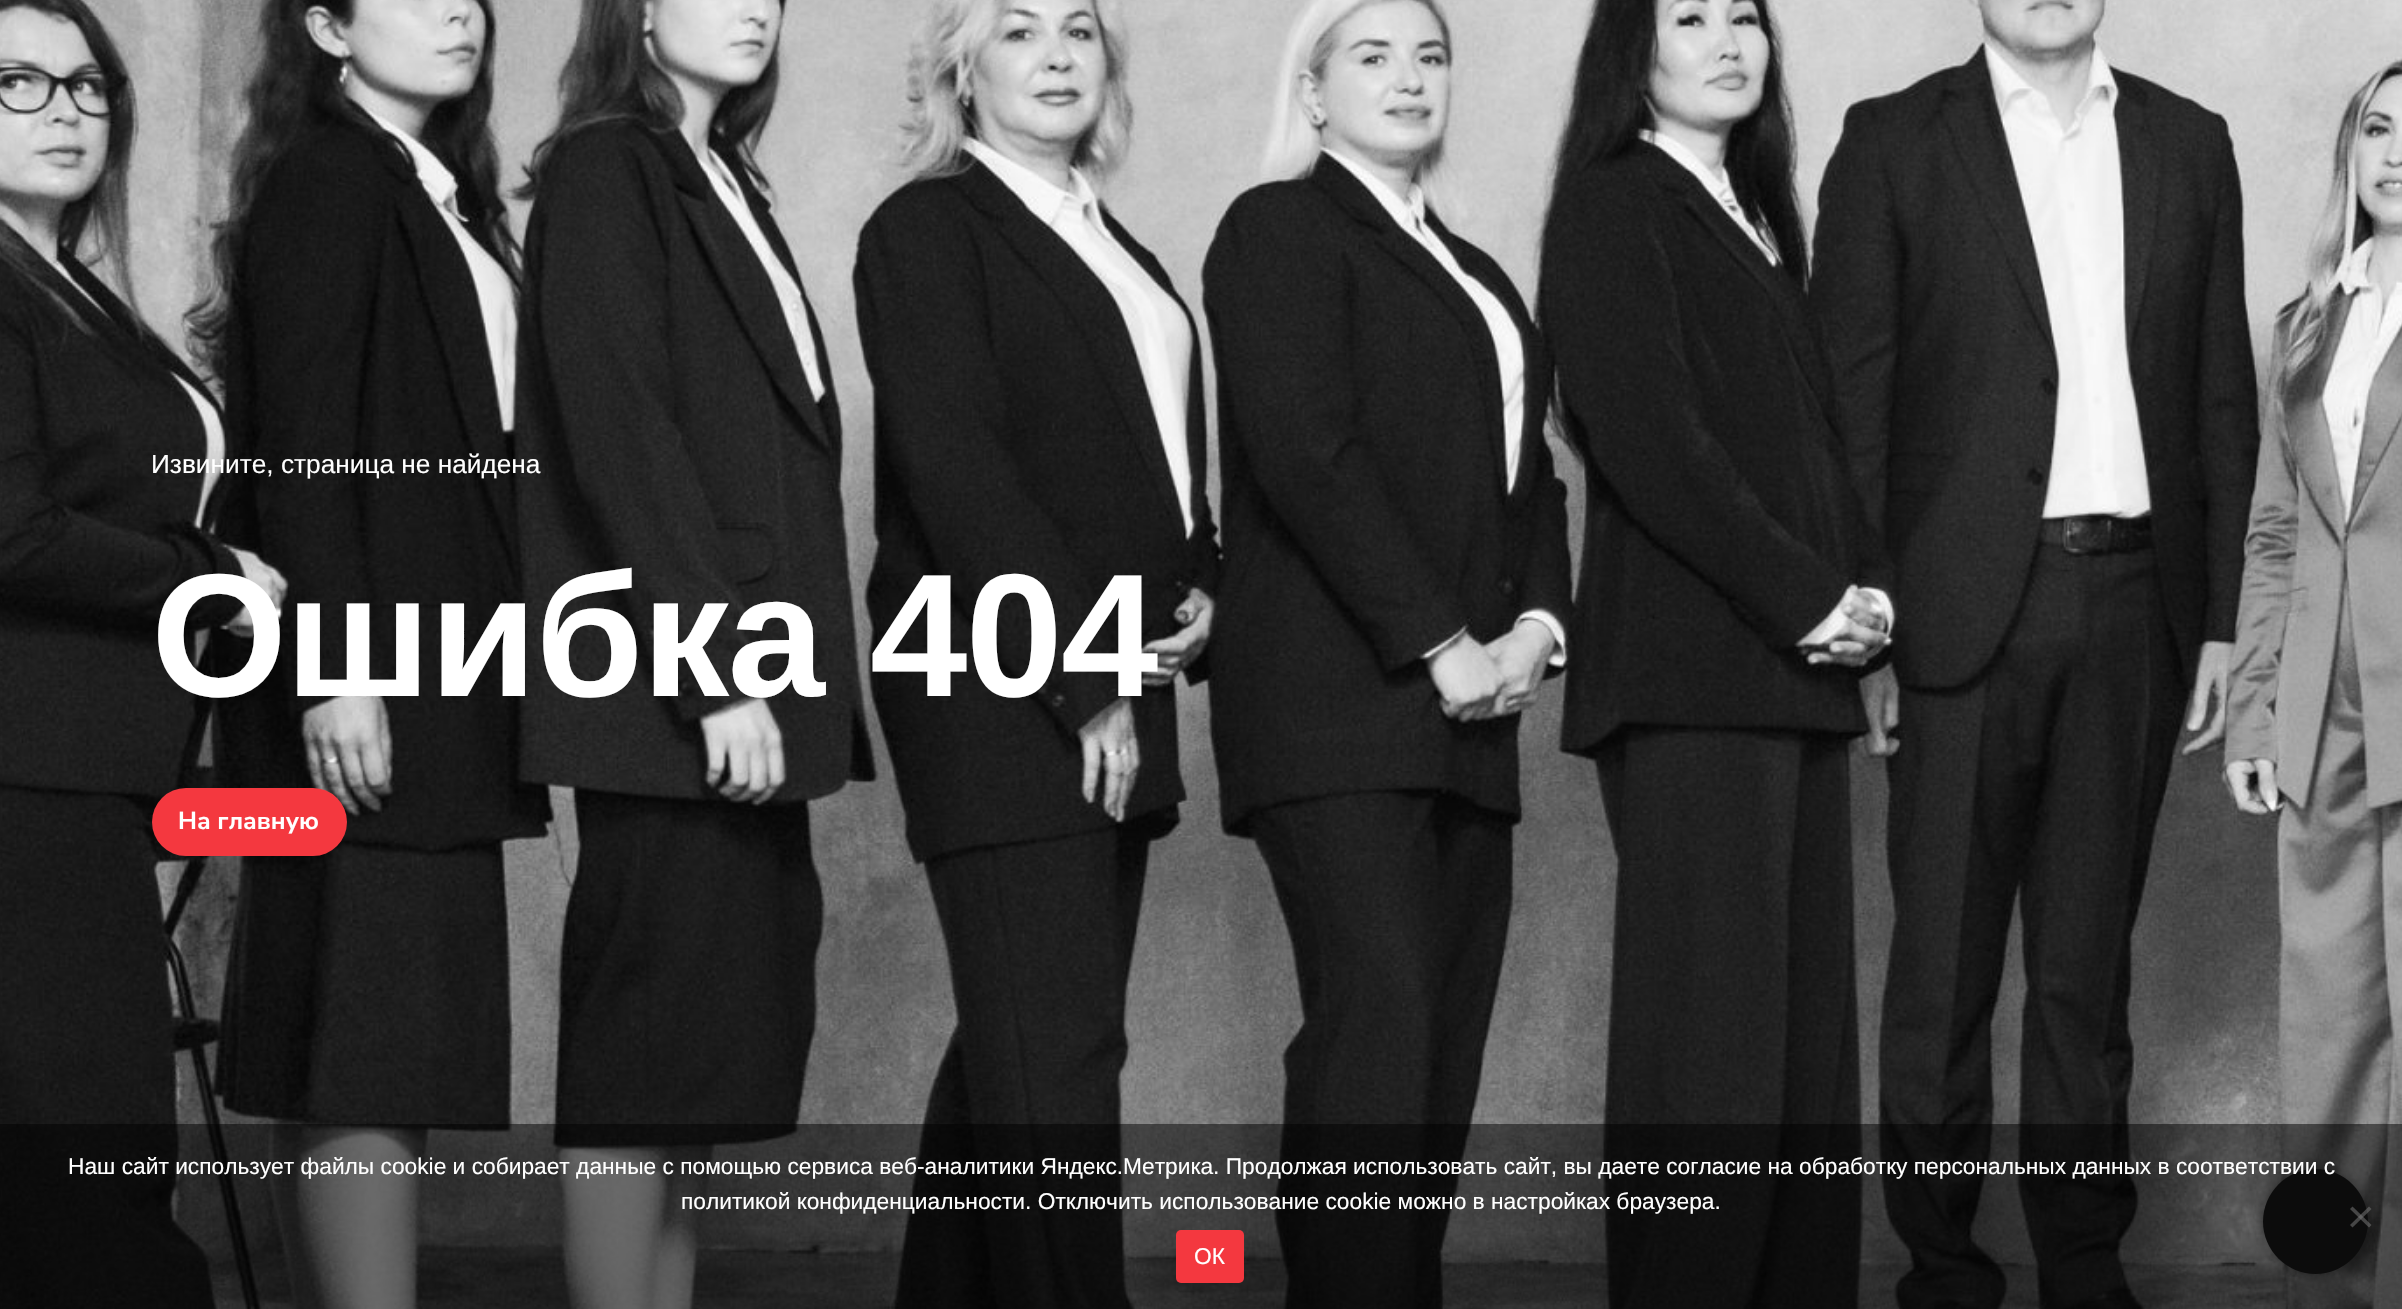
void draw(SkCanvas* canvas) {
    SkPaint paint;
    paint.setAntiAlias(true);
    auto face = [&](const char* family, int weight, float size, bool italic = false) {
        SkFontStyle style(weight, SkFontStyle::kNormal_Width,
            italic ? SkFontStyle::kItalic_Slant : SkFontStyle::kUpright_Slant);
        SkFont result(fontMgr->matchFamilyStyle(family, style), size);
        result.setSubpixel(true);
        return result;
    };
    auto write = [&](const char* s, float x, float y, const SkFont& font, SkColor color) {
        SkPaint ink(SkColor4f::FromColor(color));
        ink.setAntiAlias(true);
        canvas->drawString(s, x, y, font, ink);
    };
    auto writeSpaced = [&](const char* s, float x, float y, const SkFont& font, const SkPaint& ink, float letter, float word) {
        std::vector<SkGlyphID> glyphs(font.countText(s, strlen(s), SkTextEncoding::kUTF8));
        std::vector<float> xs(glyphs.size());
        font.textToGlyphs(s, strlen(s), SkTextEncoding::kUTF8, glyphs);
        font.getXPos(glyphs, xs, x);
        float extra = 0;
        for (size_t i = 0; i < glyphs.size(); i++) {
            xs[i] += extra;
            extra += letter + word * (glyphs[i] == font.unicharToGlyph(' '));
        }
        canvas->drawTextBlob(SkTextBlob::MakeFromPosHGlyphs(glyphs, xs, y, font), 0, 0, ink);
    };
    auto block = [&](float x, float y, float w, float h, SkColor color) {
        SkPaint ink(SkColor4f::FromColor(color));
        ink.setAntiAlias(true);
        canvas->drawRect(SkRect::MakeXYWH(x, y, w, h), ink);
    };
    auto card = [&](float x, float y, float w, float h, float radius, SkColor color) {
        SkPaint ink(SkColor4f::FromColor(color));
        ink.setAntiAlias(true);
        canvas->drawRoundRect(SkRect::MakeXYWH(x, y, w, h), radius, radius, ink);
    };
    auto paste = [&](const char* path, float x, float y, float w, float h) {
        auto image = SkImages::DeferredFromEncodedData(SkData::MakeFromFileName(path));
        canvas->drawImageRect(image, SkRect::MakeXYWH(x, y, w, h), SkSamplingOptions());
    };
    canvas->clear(SK_ColorWHITE);
    paste("pic1.png", 0, 0, 2402, 1309);
    auto kFont1 = face("Liberation Sans", 400, 26.25f);
    write("Извините, страница не найдена", 151, 473, kFont1, SK_ColorWHITE);
    auto kFont2 = face("Liberation Sans", 700, 175);
    paint.setColor(SK_ColorWHITE);
    writeSpaced("Ошибка 404", 151, 696, kFont2, paint, -1.75f, 0);
    card(152, 788, 195, 68, 34, SkColorSetRGB(244, 56, 63));
    auto kFont3 = face("Nunito Sans", 700, 24.5f);
    write("На главную", 178, 829, kFont3, SK_ColorWHITE);
    paint.setColor(SkColorSetARGB(128, 0, 0, 0));
    paint.setMaskFilter(SkMaskFilter::MakeBlur(kNormal_SkBlurStyle, 7));
    canvas->drawRoundRect(SkRect::MakeXYWH(2263, 1169, 105, 105), 52.5f, 52.5f, paint);
    paint.setMaskFilter(nullptr);
    paint.setColor(SkColorSetRGB(24, 24, 24));
    canvas->drawCircle(2315.5f, 1221.5f, 52.5f, paint);
    block(0, 1124, 2402, 185, SkColorSetARGB(128, 0, 0, 0));
    auto kFont4 = face("Liberation Sans", 400, 22.75f);
    write("Наш сайт использует файлы cookie и собирает данные с помощью сервиса веб-аналитики Яндекс.Метрика. Продолжая использовать сайт, вы даете согласие на обработку персональных данных в соответствии с", 68, 1174, kFont4, SK_ColorWHITE);
    write("политикой конфиденциальности. Отключить использование cookie можно в настройках браузера.", 681, 1209, kFont4, SK_ColorWHITE);
    paint.setColor(SkColorSetARGB(128, 128, 128, 128));
    canvas->drawPath(SkPathBuilder().moveTo(2369, 1206.5f).lineTo(2371.5f, 1209).lineTo(2352.5f, 1227.5f).lineTo(2350, 1225).close().detach(), paint);
    canvas->drawPath(SkPathBuilder().moveTo(2350, 1209).lineTo(2352.5f, 1206.5f).lineTo(2371.5f, 1225).lineTo(2369, 1227.5f).close().detach(), paint);
    card(1176, 1230, 68, 53, 5, SkColorSetRGB(244, 56, 63));
    write("ОК", 1194, 1264, kFont4, SK_ColorWHITE);
}
